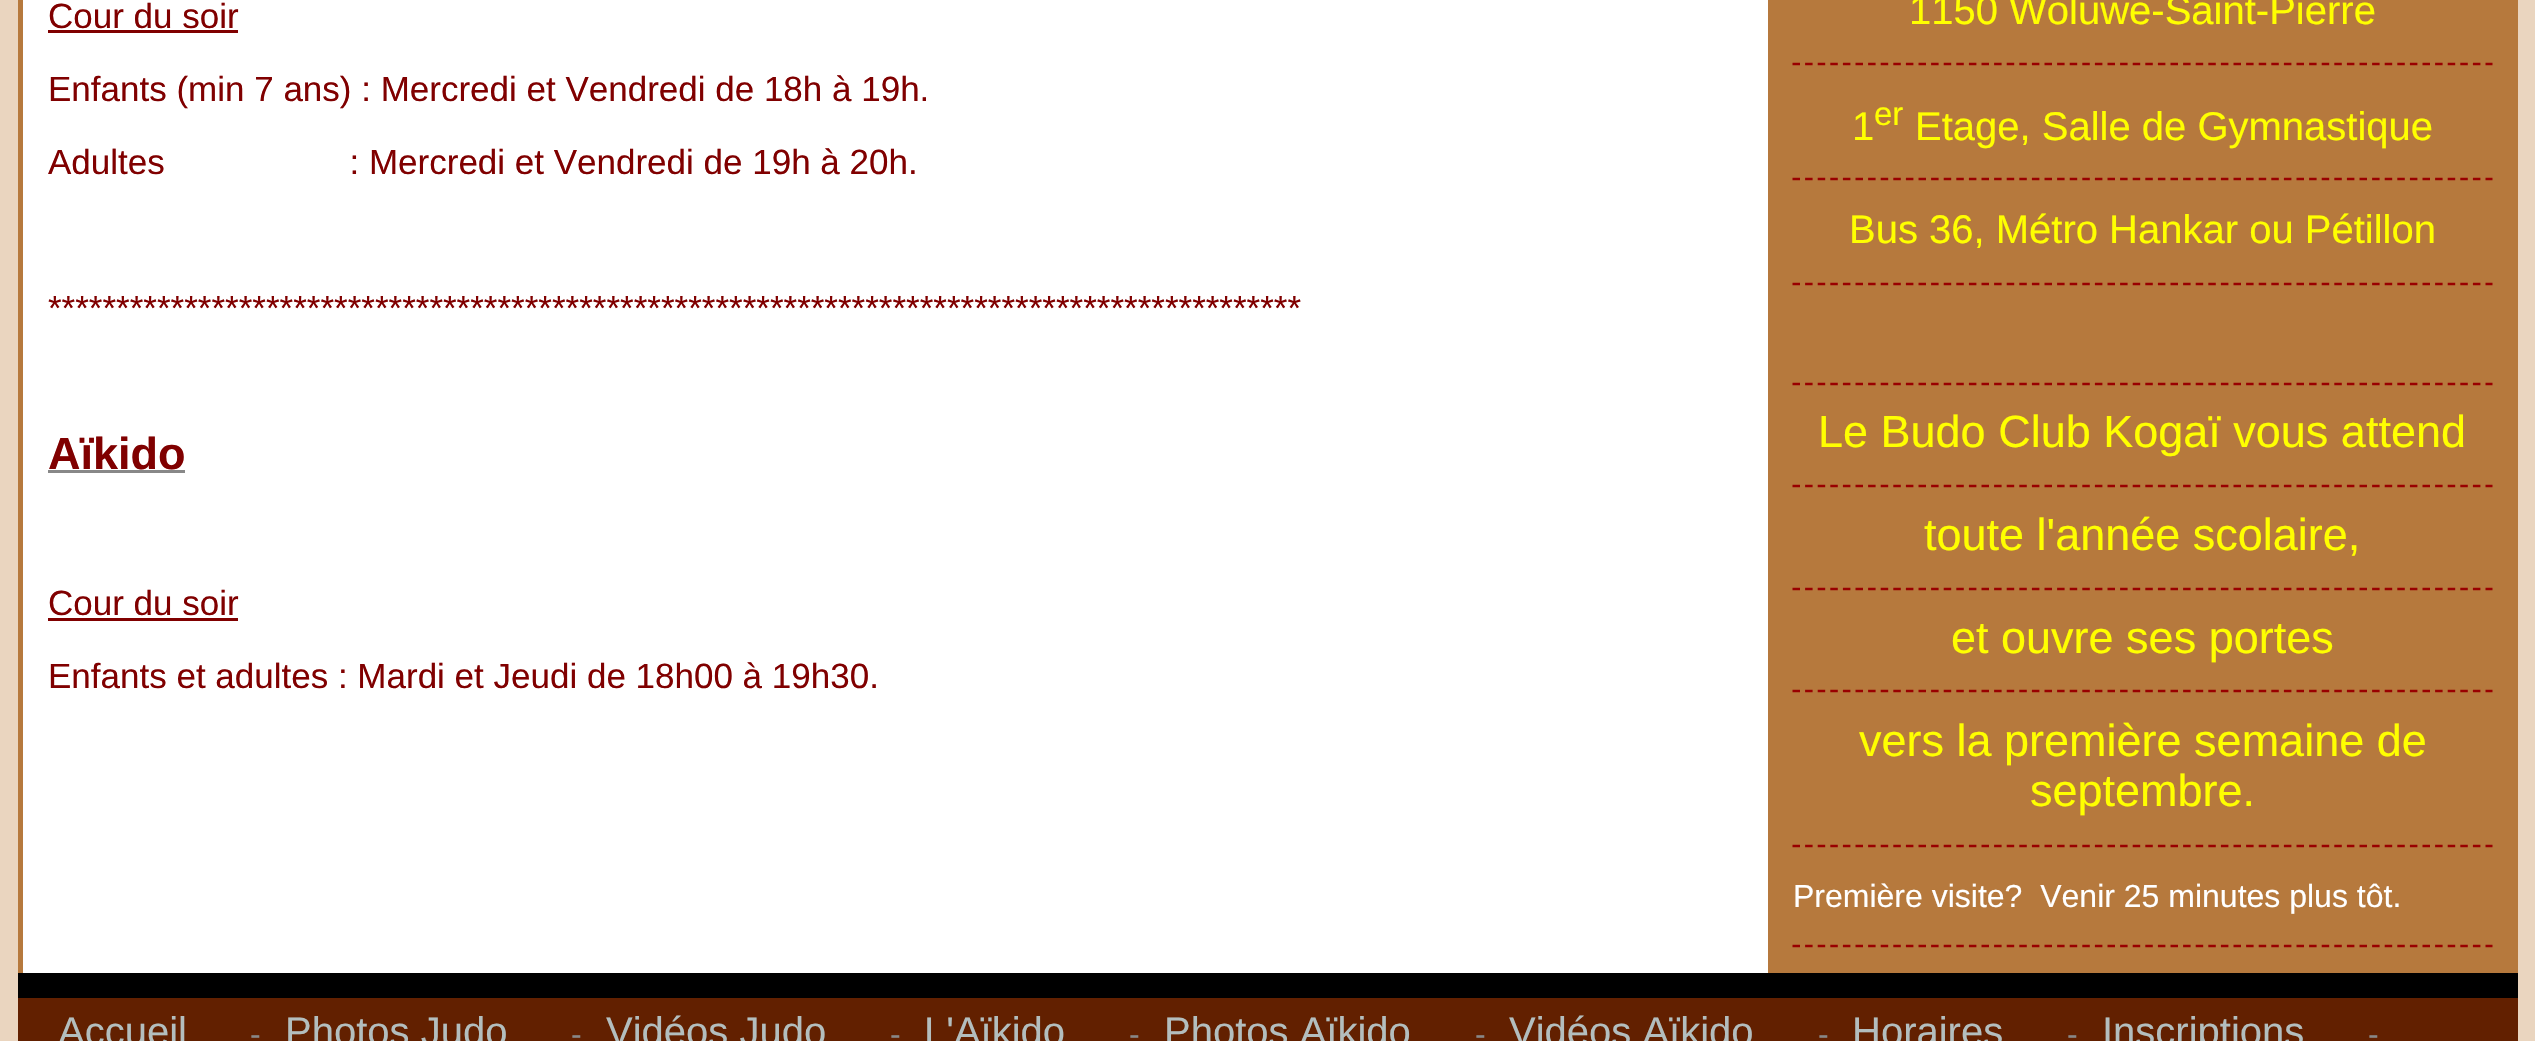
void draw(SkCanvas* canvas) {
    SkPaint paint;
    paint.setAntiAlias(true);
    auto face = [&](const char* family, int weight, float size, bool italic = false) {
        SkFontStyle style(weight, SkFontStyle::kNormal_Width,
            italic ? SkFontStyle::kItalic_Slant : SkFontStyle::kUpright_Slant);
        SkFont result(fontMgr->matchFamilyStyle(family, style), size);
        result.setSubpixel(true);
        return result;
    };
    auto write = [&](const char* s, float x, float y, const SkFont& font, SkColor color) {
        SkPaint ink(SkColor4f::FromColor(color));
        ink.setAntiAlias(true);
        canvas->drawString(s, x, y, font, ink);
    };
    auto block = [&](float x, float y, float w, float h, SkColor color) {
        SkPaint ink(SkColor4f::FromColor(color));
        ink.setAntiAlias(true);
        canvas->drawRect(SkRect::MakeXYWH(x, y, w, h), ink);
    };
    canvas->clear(SkColorSetRGB(234, 213, 191));
    block(23, 0, 1745, 973, SK_ColorWHITE);
    block(18, 0, 5, 973, SkColorSetRGB(182, 121, 61));
    auto kFont1 = face("Liberation Sans", 400, 35);
    write("Cour du soir", 48, 28, kFont1, SkColorSetRGB(128, 0, 0));
    block(48, 30, 190, 3, SkColorSetRGB(128, 0, 0));
    write("Enfants (min 7 ans) : Mercredi et Vendredi de 18h à 19h.", 48, 101, kFont1, SkColorSetRGB(128, 0, 0));
    write("Adultes                   : Mercredi et Vendredi de 19h à 20h.", 48, 174, kFont1, SkColorSetRGB(128, 0, 0));
    write("********************************************************************************************", 48, 320, kFont1, SkColorSetRGB(128, 0, 0));
    auto kFont2 = face("Liberation Sans", 700, 45);
    write("Aïkido", 48, 469, kFont2, SkColorSetRGB(128, 0, 0));
    block(48, 470, 137, 3, SkColorSetRGB(136, 136, 136));
    write("Cour du soir", 48, 615, kFont1, SkColorSetRGB(128, 0, 0));
    block(48, 618, 190, 3, SkColorSetRGB(128, 0, 0));
    write("Enfants et adultes : Mardi et Jeudi de 18h00 à 19h30.", 48, 688, kFont1, SkColorSetRGB(128, 0, 0));
    block(1768, 0, 750, 973, SkColorSetRGB(182, 121, 61));
    paint.setStyle(SkPaint::kStroke_Style);
    paint.setStrokeWidth(2.5f);
    paint.setColor(SkColorSetRGB(153, 0, 0));
    paint.setPathEffect(SkDashPathEffect::Make({{7.5f, 5.1f}}, 0));
    canvas->drawPath(SkPathBuilder().moveTo(1792.5f, 64).lineTo(2492.5f, 64).detach(), paint);
    paint.setPathEffect(nullptr);
    auto kFont3 = face("Liberation Sans", 400, 40);
    write("1150 Woluwe-Saint-Pierre", 1909, 24, kFont3, SkColorSetRGB(255, 255, 0));
    paint.setPathEffect(SkDashPathEffect::Make({{7.5f, 5.1f}}, 0));
    canvas->drawPath(SkPathBuilder().moveTo(1792.5f, 179).lineTo(2492.5f, 179).detach(), paint);
    paint.setPathEffect(nullptr);
    write("1", 1852, 140, kFont3, SkColorSetRGB(255, 255, 0));
    auto kFont4 = face("Liberation Sans", 400, 33);
    write("er", 1874, 125, kFont4, SkColorSetRGB(255, 255, 0));
    write("Etage, Salle de Gymnastique", 1915, 140, kFont3, SkColorSetRGB(255, 255, 0));
    paint.setPathEffect(SkDashPathEffect::Make({{7.5f, 5.1f}}, 0));
    canvas->drawPath(SkPathBuilder().moveTo(1792.5f, 284).lineTo(2492.5f, 284).detach(), paint);
    paint.setPathEffect(nullptr);
    write("Bus 36, Métro Hankar ou Pétillon", 1849, 243, kFont3, SkColorSetRGB(255, 255, 0));
    paint.setPathEffect(SkDashPathEffect::Make({{7.5f, 5.1f}}, 0));
    canvas->drawPath(SkPathBuilder().moveTo(1792.5f, 384).lineTo(2492.5f, 384).detach(), paint);
    paint.setPathEffect(nullptr);
    paint.setPathEffect(SkDashPathEffect::Make({{7.5f, 5.1f}}, 0));
    canvas->drawPath(SkPathBuilder().moveTo(1792.5f, 486).lineTo(2492.5f, 486).detach(), paint);
    paint.setPathEffect(nullptr);
    auto kFont5 = face("Liberation Sans", 400, 45);
    write("Le Budo Club Kogaï vous attend", 1818, 447, kFont5, SkColorSetRGB(255, 255, 0));
    paint.setPathEffect(SkDashPathEffect::Make({{7.5f, 5.1f}}, 0));
    canvas->drawPath(SkPathBuilder().moveTo(1792.5f, 589).lineTo(2492.5f, 589).detach(), paint);
    paint.setPathEffect(nullptr);
    write("toute l'année scolaire,", 1924, 550, kFont5, SkColorSetRGB(255, 255, 0));
    paint.setPathEffect(SkDashPathEffect::Make({{7.5f, 5.1f}}, 0));
    canvas->drawPath(SkPathBuilder().moveTo(1792.5f, 691).lineTo(2492.5f, 691).detach(), paint);
    paint.setPathEffect(nullptr);
    write("et ouvre ses portes", 1951, 653, kFont5, SkColorSetRGB(255, 255, 0));
    paint.setPathEffect(SkDashPathEffect::Make({{7.5f, 5.1f}}, 0));
    canvas->drawPath(SkPathBuilder().moveTo(1792.5f, 846).lineTo(2492.5f, 846).detach(), paint);
    paint.setPathEffect(nullptr);
    write("vers la première semaine de", 1859, 756, kFont5, SkColorSetRGB(255, 255, 0));
    write("septembre.", 2030, 806, kFont5, SkColorSetRGB(255, 255, 0));
    paint.setPathEffect(SkDashPathEffect::Make({{7.5f, 5.1f}}, 0));
    canvas->drawPath(SkPathBuilder().moveTo(1792.5f, 946).lineTo(2492.5f, 946).detach(), paint);
    paint.setPathEffect(nullptr);
    auto kFont6 = face("Liberation Sans", 400, 32);
    write("Première visite?  Venir 25 minutes plus tôt.", 1793, 907, kFont6, SK_ColorWHITE);
    block(18, 998, 2500, 43, SkColorSetRGB(98, 32, 0));
    block(18, 973, 2500, 25, SK_ColorBLACK);
    write("Accueil", 58, 1045, kFont3, SkColorSetRGB(179, 190, 190));
    write("-", 250, 1045, kFont6, SkColorSetRGB(136, 136, 136));
    write("Photos Judo", 285, 1045, kFont3, SkColorSetRGB(179, 190, 190));
    write("-", 571, 1045, kFont6, SkColorSetRGB(136, 136, 136));
    write("Vidéos Judo", 606, 1045, kFont3, SkColorSetRGB(179, 190, 190));
    write("-", 890, 1045, kFont6, SkColorSetRGB(136, 136, 136));
    write("L'Aïkido", 924, 1045, kFont3, SkColorSetRGB(179, 190, 190));
    write("-", 1129, 1045, kFont6, SkColorSetRGB(136, 136, 136));
    write("Photos Aïkido", 1164, 1045, kFont3, SkColorSetRGB(179, 190, 190));
    write("-", 1475, 1045, kFont6, SkColorSetRGB(136, 136, 136));
    write("Vidéos Aïkido", 1509, 1045, kFont3, SkColorSetRGB(179, 190, 190));
    write("-", 1818, 1045, kFont6, SkColorSetRGB(136, 136, 136));
    write("Horaires", 1852, 1045, kFont3, SkColorSetRGB(179, 190, 190));
    write("-", 2067, 1045, kFont6, SkColorSetRGB(136, 136, 136));
    write("Inscriptions", 2102, 1045, kFont3, SkColorSetRGB(179, 190, 190));
    write("-", 2368, 1045, kFont6, SkColorSetRGB(136, 136, 136));
}
